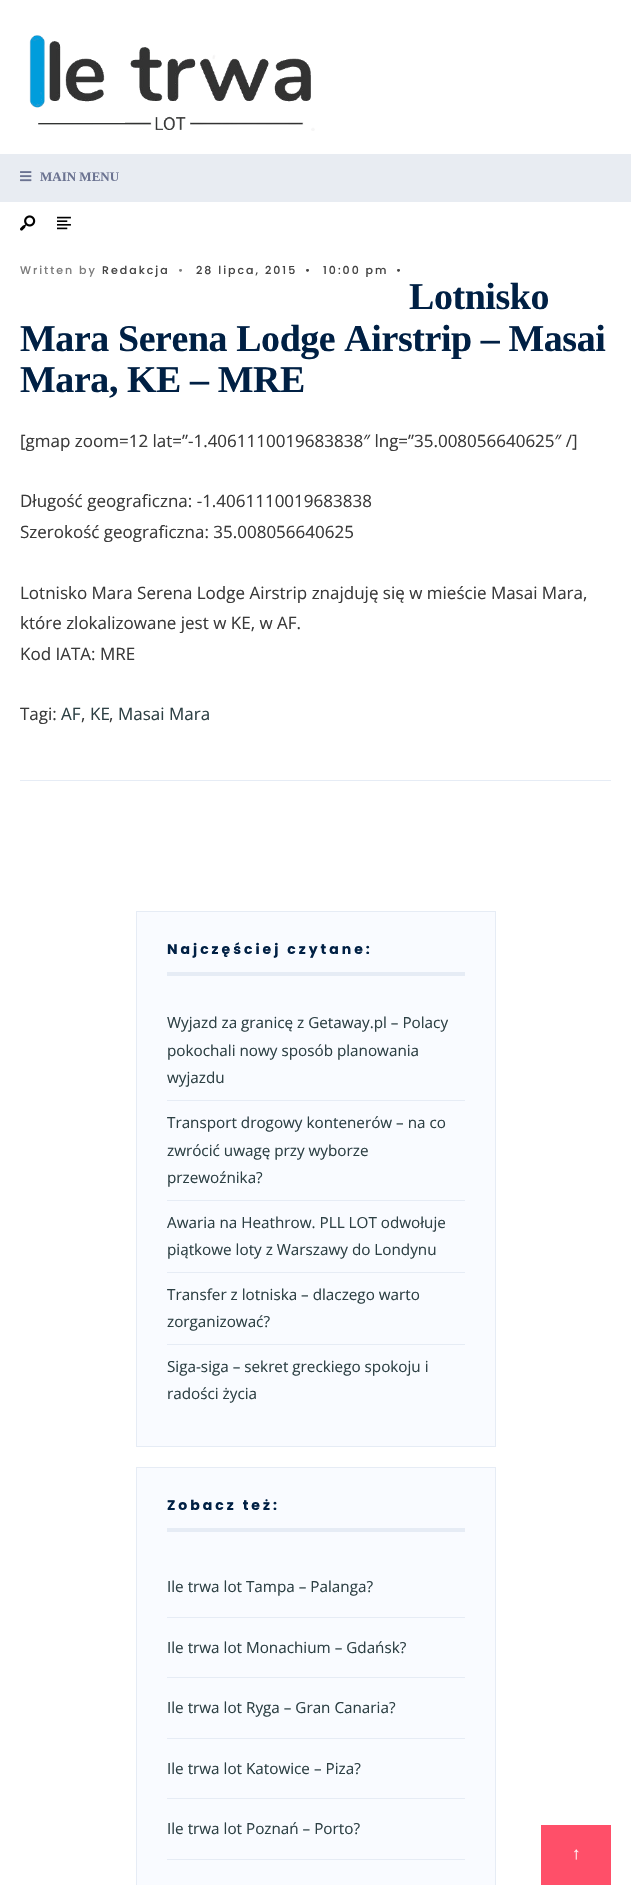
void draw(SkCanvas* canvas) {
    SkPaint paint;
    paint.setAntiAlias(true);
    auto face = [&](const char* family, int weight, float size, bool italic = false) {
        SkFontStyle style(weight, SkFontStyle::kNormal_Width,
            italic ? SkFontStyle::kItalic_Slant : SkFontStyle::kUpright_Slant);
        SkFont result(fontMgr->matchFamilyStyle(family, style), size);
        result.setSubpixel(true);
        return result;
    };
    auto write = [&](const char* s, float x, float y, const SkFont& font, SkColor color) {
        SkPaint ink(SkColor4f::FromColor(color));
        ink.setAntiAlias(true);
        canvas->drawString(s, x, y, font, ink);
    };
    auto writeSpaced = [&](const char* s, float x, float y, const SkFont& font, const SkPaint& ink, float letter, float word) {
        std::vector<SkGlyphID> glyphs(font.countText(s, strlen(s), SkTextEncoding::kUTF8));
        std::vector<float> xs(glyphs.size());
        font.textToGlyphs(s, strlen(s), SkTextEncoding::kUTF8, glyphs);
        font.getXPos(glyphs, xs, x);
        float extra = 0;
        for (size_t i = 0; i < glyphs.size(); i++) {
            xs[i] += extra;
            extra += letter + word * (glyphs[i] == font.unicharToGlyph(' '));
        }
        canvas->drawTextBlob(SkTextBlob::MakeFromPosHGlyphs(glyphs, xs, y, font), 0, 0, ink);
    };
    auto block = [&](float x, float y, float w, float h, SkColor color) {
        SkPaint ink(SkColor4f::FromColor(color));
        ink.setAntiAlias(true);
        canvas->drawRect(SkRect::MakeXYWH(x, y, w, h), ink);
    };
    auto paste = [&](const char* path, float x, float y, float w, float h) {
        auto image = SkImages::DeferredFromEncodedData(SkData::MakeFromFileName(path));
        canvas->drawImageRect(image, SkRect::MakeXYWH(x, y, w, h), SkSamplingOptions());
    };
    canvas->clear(SK_ColorWHITE);
    paste("pic1.png", 29, 35, 286, 96);
    block(0, 154, 631, 48, SkColorSetRGB(232, 236, 242));
    paste("pic2.png", 20, 171, 12, 11);
    auto kFont1 = face("Liberation Serif", 700, 13);
    write("MAIN MENU", 40, 181, kFont1, SkColorSetRGB(107, 115, 145));
    paste("pic3.png", 20, 215, 16, 16);
    paste("pic4.png", 57, 216, 14, 14);
    auto kFont2 = face("Poppins", 500, 11);
    paint.setColor(SkColorSetRGB(124, 124, 124));
    writeSpaced("Written by", 20, 274, kFont2, paint, 2, 0);
    paint.setColor(SkColorSetRGB(68, 68, 68));
    writeSpaced("Redakcja", 102, 274, kFont2, paint, 2, 0);
    paint.setColor(SkColorSetRGB(124, 124, 124));
    writeSpaced("•", 178, 274, kFont2, paint, 2, 0);
    paint.setColor(SkColorSetRGB(68, 68, 68));
    writeSpaced("28 lipca, 2015", 196, 274, kFont2, paint, 2, 0);
    writeSpaced("•", 305, 274, kFont2, paint, 2, 0);
    writeSpaced("10:00 pm", 323, 274, kFont2, paint, 2, 0);
    writeSpaced("•", 396, 274, kFont2, paint, 2, 0);
    auto kFont3 = face("Liberation Serif", 700, 37.9f);
    paint.setColor(SkColorSetRGB(0, 32, 68));
    writeSpaced("Lotnisko", 409, 309, kFont3, paint, -0.4f, 0);
    writeSpaced("Mara Serena Lodge Airstrip – Masai", 20, 351, kFont3, paint, -0.4f, 0);
    writeSpaced("Mara, KE – MRE", 20, 392, kFont3, paint, -0.4f, 0);
    auto kFont4 = face("Open Sans", 400, 17);
    write("[gmap zoom=12 lat=”-1.4061110019683838″ lng=”35.008056640625″ /]", 20, 447, kFont4, SkColorSetRGB(58, 58, 58));
    write("Długość geograficzna: -1.4061110019683838", 20, 507, kFont4, SkColorSetRGB(58, 58, 58));
    write("Szerokość geograficzna: 35.008056640625", 20, 538, kFont4, SkColorSetRGB(58, 58, 58));
    write("Lotnisko Mara Serena Lodge Airstrip znajduję się w mieście Masai Mara,", 20, 599, kFont4, SkColorSetRGB(58, 58, 58));
    write("które zlokalizowane jest w KE, w AF.", 20, 629, kFont4, SkColorSetRGB(58, 58, 58));
    write("Kod IATA: MRE", 20, 660, kFont4, SkColorSetRGB(58, 58, 58));
    write("Tagi:", 20, 720, kFont4, SkColorSetRGB(58, 58, 58));
    write("AF", 61, 720, kFont4, SkColorSetRGB(45, 64, 68));
    write(",", 81, 720, kFont4, SkColorSetRGB(58, 58, 58));
    write("KE", 90, 720, kFont4, SkColorSetRGB(45, 64, 68));
    write(",", 109, 720, kFont4, SkColorSetRGB(58, 58, 58));
    write("Masai Mara", 118, 720, kFont4, SkColorSetRGB(45, 64, 68));
    block(20, 780, 591, 1, SkColorSetRGB(230, 236, 245));
    paint.setColor(SkColorSetRGB(249, 251, 255));
    canvas->drawRect(SkRect::MakeXYWH(136.5f, 911.5f, 359, 535), paint);
    paint.setStyle(SkPaint::kStroke_Style);
    paint.setStrokeWidth(1);
    paint.setColor(SkColorSetRGB(230, 236, 245));
    canvas->drawRect(SkRect::MakeXYWH(136.5f, 911.5f, 359, 535), paint);
    block(167, 972, 298, 4, SkColorSetRGB(230, 236, 245));
    auto kFont5 = face("Poppins", 700, 14);
    paint.setStyle(SkPaint::kFill_Style);
    paint.setColor(SkColorSetRGB(0, 32, 68));
    writeSpaced("Najczęściej czytane:", 167, 954, kFont5, paint, 3, 0);
    auto kFont6 = face("Open Sans", 400, 15.25f);
    write("Wyjazd za granicę z Getaway.pl – Polacy", 167, 1028, kFont6, SkColorSetRGB(45, 64, 68));
    write("pokochali nowy sposób planowania", 167, 1056, kFont6, SkColorSetRGB(45, 64, 68));
    write("wyjazdu", 167, 1083, kFont6, SkColorSetRGB(45, 64, 68));
    block(167, 1100, 298, 1, SkColorSetRGB(230, 236, 245));
    write("Transport drogowy kontenerów – na co", 167, 1128, kFont6, SkColorSetRGB(45, 64, 68));
    write("zwrócić uwagę przy wyborze", 167, 1156, kFont6, SkColorSetRGB(45, 64, 68));
    write("przewoźnika?", 167, 1183, kFont6, SkColorSetRGB(45, 64, 68));
    block(167, 1200, 298, 1, SkColorSetRGB(230, 236, 245));
    write("Awaria na Heathrow. PLL LOT odwołuje", 167, 1228, kFont6, SkColorSetRGB(45, 64, 68));
    write("piątkowe loty z Warszawy do Londynu", 167, 1255, kFont6, SkColorSetRGB(45, 64, 68));
    block(167, 1272, 298, 1, SkColorSetRGB(230, 236, 245));
    write("Transfer z lotniska – dlaczego warto", 167, 1300, kFont6, SkColorSetRGB(45, 64, 68));
    write("zorganizować?", 167, 1327, kFont6, SkColorSetRGB(45, 64, 68));
    block(167, 1344, 298, 1, SkColorSetRGB(230, 236, 245));
    write("Siga-siga – sekret greckiego spokoju i", 167, 1372, kFont6, SkColorSetRGB(45, 64, 68));
    write("radości życia", 167, 1399, kFont6, SkColorSetRGB(45, 64, 68));
    paint.setColor(SkColorSetRGB(249, 251, 255));
    canvas->drawRect(SkRect::MakeXYWH(136.5f, 1467.5f, 359, 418), paint);
    paint.setStyle(SkPaint::kStroke_Style);
    paint.setColor(SkColorSetRGB(230, 236, 245));
    canvas->drawRect(SkRect::MakeXYWH(136.5f, 1467.5f, 359, 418), paint);
    block(167, 1528, 298, 4, SkColorSetRGB(230, 236, 245));
    paint.setStyle(SkPaint::kFill_Style);
    paint.setColor(SkColorSetRGB(0, 32, 68));
    writeSpaced("Zobacz też:", 167, 1510, kFont5, paint, 3, 0);
    write("Ile trwa lot Tampa – Palanga?", 167, 1592, kFont6, SkColorSetRGB(45, 64, 68));
    block(167, 1617, 298, 1, SkColorSetRGB(230, 236, 245));
    write("Ile trwa lot Monachium – Gdańsk?", 167, 1653, kFont6, SkColorSetRGB(45, 64, 68));
    block(167, 1677, 298, 1, SkColorSetRGB(230, 236, 245));
    write("Ile trwa lot Ryga – Gran Canaria?", 167, 1713, kFont6, SkColorSetRGB(45, 64, 68));
    block(167, 1738, 298, 1, SkColorSetRGB(230, 236, 245));
    write("Ile trwa lot Katowice – Piza?", 167, 1774, kFont6, SkColorSetRGB(45, 64, 68));
    block(167, 1798, 298, 1, SkColorSetRGB(230, 236, 245));
    write("Ile trwa lot Poznań – Porto?", 167, 1834, kFont6, SkColorSetRGB(45, 64, 68));
    block(167, 1859, 298, 1, SkColorSetRGB(230, 236, 245));
    block(541, 1825, 70, 60, SkColorSetRGB(255, 79, 105));
    auto kFont7 = face("Liberation Serif", 400, 17);
    write("↑", 572, 1859, kFont7, SK_ColorWHITE);
}
